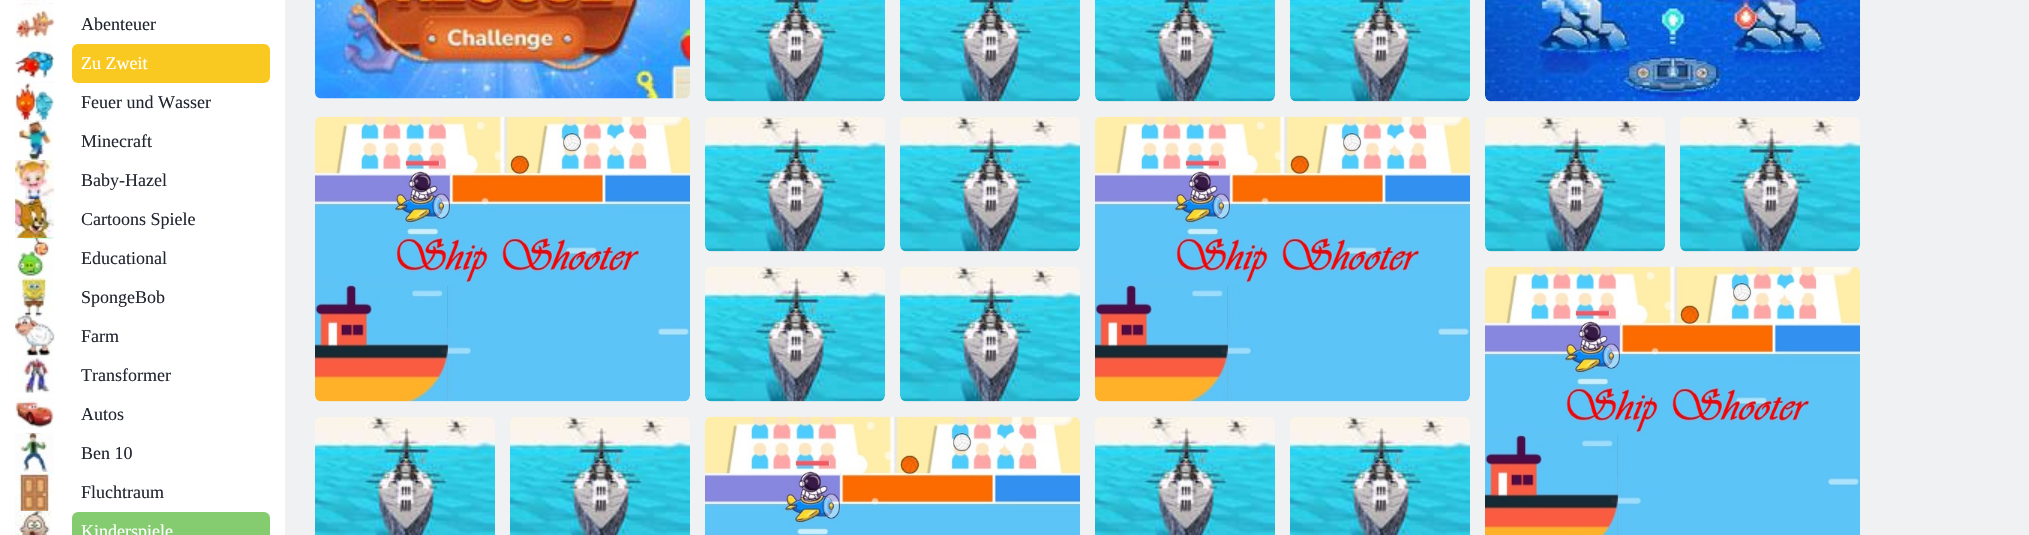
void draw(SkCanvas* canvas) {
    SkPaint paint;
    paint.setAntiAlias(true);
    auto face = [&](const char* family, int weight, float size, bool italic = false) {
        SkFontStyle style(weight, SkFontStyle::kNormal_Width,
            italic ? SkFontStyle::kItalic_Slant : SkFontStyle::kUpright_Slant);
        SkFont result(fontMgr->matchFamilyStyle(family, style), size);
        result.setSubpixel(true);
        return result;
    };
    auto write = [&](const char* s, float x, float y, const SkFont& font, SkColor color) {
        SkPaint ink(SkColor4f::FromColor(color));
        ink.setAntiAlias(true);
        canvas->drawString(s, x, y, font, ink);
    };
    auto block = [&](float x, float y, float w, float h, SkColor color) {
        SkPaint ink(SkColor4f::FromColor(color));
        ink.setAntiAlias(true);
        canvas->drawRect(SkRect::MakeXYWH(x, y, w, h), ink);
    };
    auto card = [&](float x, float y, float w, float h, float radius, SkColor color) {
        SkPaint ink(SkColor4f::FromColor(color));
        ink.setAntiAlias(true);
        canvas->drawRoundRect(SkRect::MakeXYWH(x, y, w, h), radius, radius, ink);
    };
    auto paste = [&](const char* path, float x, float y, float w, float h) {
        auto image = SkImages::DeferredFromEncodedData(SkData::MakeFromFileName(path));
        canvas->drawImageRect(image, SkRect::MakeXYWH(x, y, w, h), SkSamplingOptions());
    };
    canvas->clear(SkColorSetRGB(240, 241, 243));
    block(0, 0, 285, 535, SK_ColorWHITE);
    paste("pic1.png", 22, 0, 32, 4);
    paste("pic2.png", 15, 4, 40, 38);
    auto kFont1 = face("Liberation Serif", 400, 18);
    write("Abenteuer", 81, 30, kFont1, SkColorSetRGB(34, 38, 48));
    paste("pic3.png", 15, 43, 40, 39);
    card(72, 44, 198, 39, 6, SkColorSetRGB(249, 201, 33));
    write("Zu Zweit", 81, 69, kFont1, SK_ColorWHITE);
    paste("pic4.png", 15, 82, 40, 39);
    write("Feuer und Wasser", 81, 108, kFont1, SkColorSetRGB(34, 38, 48));
    paste("pic5.png", 15, 121, 39, 39);
    write("Minecraft", 81, 147, kFont1, SkColorSetRGB(34, 38, 48));
    paste("pic6.png", 15, 160, 40, 39);
    write("Baby-Hazel", 81, 186, kFont1, SkColorSetRGB(34, 38, 48));
    paste("pic7.png", 15, 199, 40, 39);
    write("Cartoons Spiele", 81, 225, kFont1, SkColorSetRGB(34, 38, 48));
    paste("pic8.png", 15, 238, 39, 39);
    write("Educational", 81, 264, kFont1, SkColorSetRGB(34, 38, 48));
    paste("pic9.png", 15, 277, 39, 39);
    write("SpongeBob", 81, 303, kFont1, SkColorSetRGB(34, 38, 48));
    paste("pic10.png", 15, 316, 40, 39);
    write("Farm", 81, 342, kFont1, SkColorSetRGB(34, 38, 48));
    paste("pic11.png", 15, 355, 39, 39);
    write("Transformer", 81, 381, kFont1, SkColorSetRGB(34, 38, 48));
    paste("pic12.png", 15, 397, 39, 32);
    write("Autos", 81, 420, kFont1, SkColorSetRGB(34, 38, 48));
    paste("pic13.png", 15, 433, 39, 39);
    write("Ben 10", 81, 459, kFont1, SkColorSetRGB(34, 38, 48));
    paste("pic14.png", 15, 472, 39, 39);
    write("Fluchtraum", 81, 498, kFont1, SkColorSetRGB(34, 38, 48));
    paste("pic15.png", 15, 511, 37, 24);
    card(72, 512, 198, 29, 6, SkColorSetRGB(132, 204, 111));
    write("Kinderspiele", 81, 537, kFont1, SK_ColorWHITE);
    paste("pic16.png", 315, 0, 375, 99);
    paste("pic17.png", 705, 0, 180, 102);
    paste("pic18.png", 900, 0, 180, 102);
    paste("pic19.png", 1095, 0, 180, 102);
    paste("pic20.png", 1290, 0, 180, 102);
    paste("pic21.png", 1485, 0, 375, 102);
    paste("pic22.png", 315, 116, 375, 286);
    paste("pic23.png", 705, 116, 180, 136);
    paste("pic24.png", 900, 116, 180, 136);
    paste("pic25.png", 1095, 116, 375, 286);
    paste("pic26.png", 1485, 116, 180, 136);
    paste("pic24.png", 1680, 116, 180, 136);
    paste("pic27.png", 315, 416, 180, 119);
    paste("pic28.png", 510, 416, 180, 119);
    paste("pic23.png", 705, 266, 180, 136);
    paste("pic24.png", 900, 266, 180, 136);
    paste("pic29.png", 1485, 266, 375, 269);
    paste("pic30.png", 705, 416, 375, 119);
    paste("pic31.png", 1095, 416, 180, 119);
    paste("pic32.png", 1290, 416, 180, 119);
}
